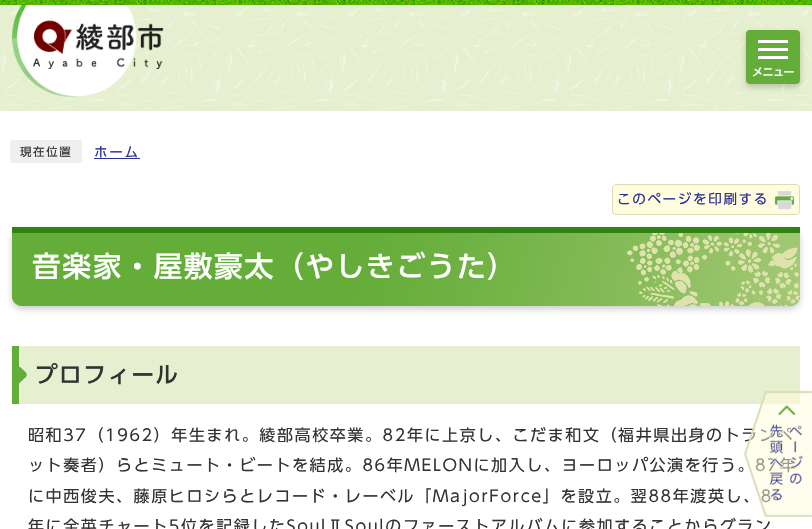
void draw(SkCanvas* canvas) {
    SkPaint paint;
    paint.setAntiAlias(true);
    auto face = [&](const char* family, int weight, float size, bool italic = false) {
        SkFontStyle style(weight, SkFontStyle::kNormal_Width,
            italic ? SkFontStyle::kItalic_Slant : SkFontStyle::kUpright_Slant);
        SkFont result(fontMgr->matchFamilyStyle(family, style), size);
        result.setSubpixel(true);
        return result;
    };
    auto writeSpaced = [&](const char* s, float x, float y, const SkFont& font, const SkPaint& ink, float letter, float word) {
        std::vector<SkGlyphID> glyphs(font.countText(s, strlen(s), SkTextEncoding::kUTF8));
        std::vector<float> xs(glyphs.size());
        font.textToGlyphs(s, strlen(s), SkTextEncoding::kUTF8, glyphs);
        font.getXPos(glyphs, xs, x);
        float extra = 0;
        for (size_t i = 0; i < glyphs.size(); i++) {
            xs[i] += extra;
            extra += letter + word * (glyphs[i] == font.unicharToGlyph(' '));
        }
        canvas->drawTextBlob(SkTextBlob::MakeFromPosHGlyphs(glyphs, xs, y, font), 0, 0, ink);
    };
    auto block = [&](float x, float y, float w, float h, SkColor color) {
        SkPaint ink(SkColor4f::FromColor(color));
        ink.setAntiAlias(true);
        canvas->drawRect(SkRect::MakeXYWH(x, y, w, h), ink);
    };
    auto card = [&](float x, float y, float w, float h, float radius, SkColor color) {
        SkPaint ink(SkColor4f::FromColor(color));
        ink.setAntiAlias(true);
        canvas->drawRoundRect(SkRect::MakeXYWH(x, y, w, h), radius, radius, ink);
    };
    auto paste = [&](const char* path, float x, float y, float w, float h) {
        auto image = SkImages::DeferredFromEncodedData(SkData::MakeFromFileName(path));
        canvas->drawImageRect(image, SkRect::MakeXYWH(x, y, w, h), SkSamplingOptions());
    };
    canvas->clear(SK_ColorWHITE);
    paste("pic1.png", 0, 0, 812, 5);
    block(0, 5, 812, 106, SkColorSetRGB(230, 240, 208));
    paste("pic2.png", 0, 5, 812, 105);
    paste("pic3.png", 12, 5, 152, 92);
    paint.setColor(SkColorSetARGB(51, 0, 0, 0));
    paint.setMaskFilter(SkMaskFilter::MakeBlur(kNormal_SkBlurStyle, 3));
    canvas->drawRoundRect(SkRect::MakeXYWH(746, 33, 54, 54), 4, 4, paint);
    paint.setMaskFilter(nullptr);
    card(746, 30, 54, 54, 4, SkColorSetRGB(100, 173, 57));
    block(758, 40, 30, 3, SK_ColorWHITE);
    block(758, 48, 30, 3, SK_ColorWHITE);
    block(758, 56, 30, 3, SK_ColorWHITE);
    auto kFont1 = face("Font", 500, 11);
    paint.setColor(SK_ColorWHITE);
    writeSpaced("メニュー", 752, 76, kFont1, paint, -0.5f, 0);
    card(10, 140, 72, 23, 2, SkColorSetRGB(239, 239, 239));
    auto kFont2 = face("Font", 400, 11.5f);
    paint.setColor(SkColorSetRGB(51, 51, 51));
    writeSpaced("現在位置", 20, 156, kFont2, paint, 1.6f, 0);
    auto kFont3 = face("Font", 400, 13.6f);
    paint.setColor(SkColorSetRGB(43, 48, 149));
    writeSpaced("ホーム", 94, 157, kFont3, paint, 1.6f, 0);
    block(94, 158, 46, 1, SkColorSetRGB(43, 48, 149));
    paint.setColor(SkColorSetRGB(255, 253, 221));
    canvas->drawRoundRect(SkRect::MakeXYWH(612.5f, 184.5f, 187, 30), 3.5f, 3.5f, paint);
    paint.setStyle(SkPaint::kStroke_Style);
    paint.setStrokeWidth(1);
    paint.setColor(SkColorSetRGB(219, 221, 180));
    canvas->drawRoundRect(SkRect::MakeXYWH(612.5f, 184.5f, 187, 30), 3.5f, 3.5f, paint);
    paint.setStyle(SkPaint::kFill_Style);
    paint.setColor(SkColorSetRGB(43, 48, 149));
    writeSpaced("このページを印刷する", 617, 204, kFont3, paint, 1.6f, 0);
    paste("pic4.png", 774, 190, 21, 20);
    paint.setColor(SkColorSetARGB(51, 0, 0, 0));
    paint.setMaskFilter(SkMaskFilter::MakeBlur(kNormal_SkBlurStyle, 3));
    canvas->drawRoundRect(SkRect::MakeXYWH(12, 230, 788, 79), 10, 10, paint);
    paint.setMaskFilter(nullptr);
    paint.setColor(SkColorSetRGB(100, 173, 57));
    canvas->drawPath(SkPathBuilder().moveTo(12, 227).lineTo(800, 227).lineTo(800, 296).cubicTo(800, 301.5f, 795.5f, 306, 790, 306).lineTo(22, 306).cubicTo(16.5f, 306, 12, 301.5f, 12, 296).close().detach(), paint);
    paste("pic5.png", 12, 227, 788, 79);
    auto kFont4 = face("Font", 500, 28.75f);
    paint.setColor(SK_ColorWHITE);
    writeSpaced("音楽家・屋敷豪太（やしきごうた）", 32, 277, kFont4, paint, 1.6f, 0);
    block(19, 346, 781, 58, SkColorSetRGB(230, 240, 208));
    block(12, 346, 7, 58, SkColorSetRGB(100, 173, 57));
    canvas->save();
    canvas->clipRect(SkRect::MakeXYWH(19, 346, 781, 58));
    paint.setColor(SkColorSetRGB(100, 173, 57));
    canvas->drawPath(SkPathBuilder().moveTo(20, 367).lineTo(26, 372.5f).cubicTo(27, 374, 27, 376, 26, 377).lineTo(20, 382.5f).cubicTo(19, 384, 17, 384, 16, 382.5f).lineTo(10, 377).cubicTo(9, 376, 9, 374, 10, 372.5f).lineTo(16, 367).cubicTo(17, 366, 19, 366, 20, 367).close().detach(), paint);
    canvas->restore();
    auto kFont5 = face("Font", 500, 22.5f);
    paint.setColor(SkColorSetRGB(51, 51, 51));
    writeSpaced("プロフィール", 35, 383, kFont5, paint, 1.6f, 0);
    auto kFont6 = face("Font", 400, 16);
    writeSpaced("昭和37（1962）年生まれ。綾部高校卒業。82年に上京し、こだま和文（福井県出身のトランペ", 28, 441, kFont6, paint, 1.6f, 0);
    writeSpaced("ット奏者）らとミュート・ビートを結成。86年MELONに加入し、ヨーロッパ公演を行う。87年", 28, 471, kFont6, paint, 1.6f, 0);
    writeSpaced("に中西俊夫、藤原ヒロシらとレコード・レーベル「MajorForce」を設立。翌88年渡英し、8", 28, 502, kFont6, paint, 1.6f, 0);
    writeSpaced("年に全英チャート5位を記録したSoulⅡSoulのファーストアルバムに参加することからグラン", 28, 532, kFont6, paint, 1.6f, 0);
    paste("pic6.png", 744, 390, 68, 127);
}
